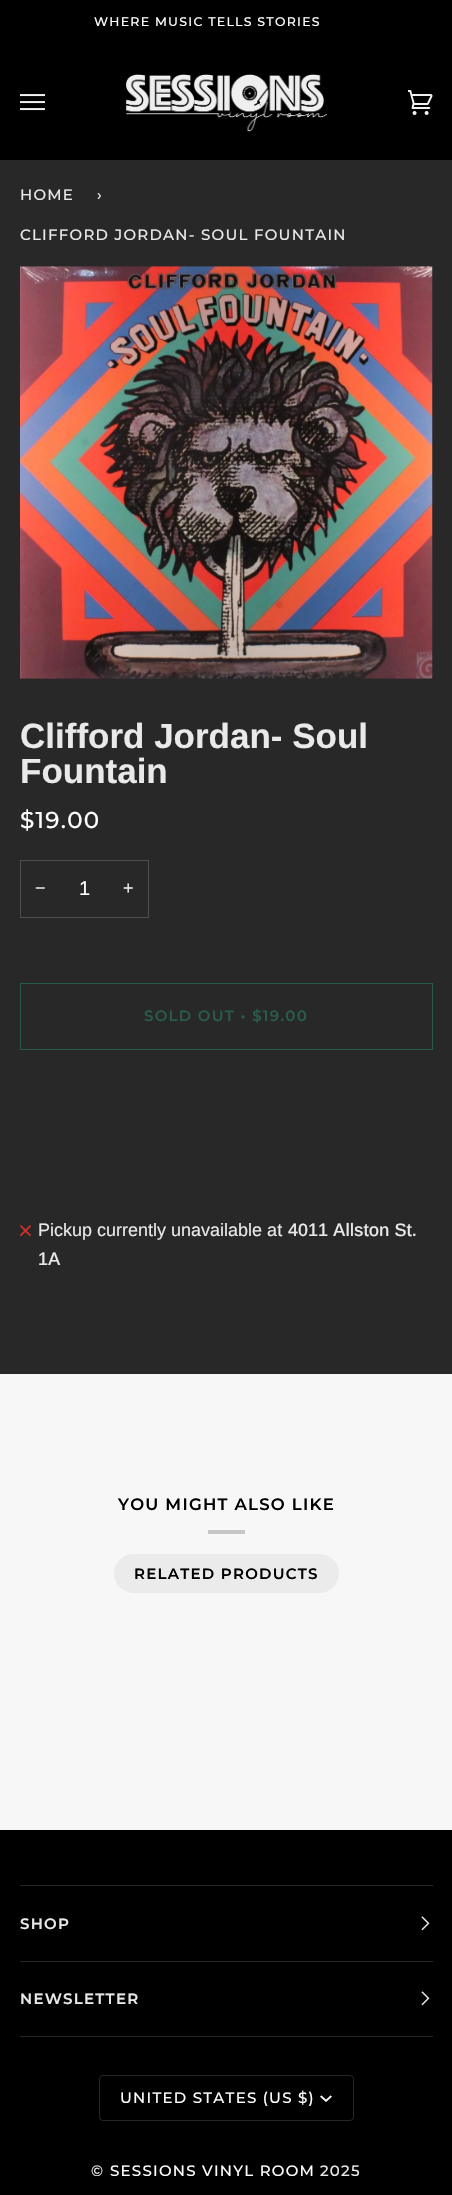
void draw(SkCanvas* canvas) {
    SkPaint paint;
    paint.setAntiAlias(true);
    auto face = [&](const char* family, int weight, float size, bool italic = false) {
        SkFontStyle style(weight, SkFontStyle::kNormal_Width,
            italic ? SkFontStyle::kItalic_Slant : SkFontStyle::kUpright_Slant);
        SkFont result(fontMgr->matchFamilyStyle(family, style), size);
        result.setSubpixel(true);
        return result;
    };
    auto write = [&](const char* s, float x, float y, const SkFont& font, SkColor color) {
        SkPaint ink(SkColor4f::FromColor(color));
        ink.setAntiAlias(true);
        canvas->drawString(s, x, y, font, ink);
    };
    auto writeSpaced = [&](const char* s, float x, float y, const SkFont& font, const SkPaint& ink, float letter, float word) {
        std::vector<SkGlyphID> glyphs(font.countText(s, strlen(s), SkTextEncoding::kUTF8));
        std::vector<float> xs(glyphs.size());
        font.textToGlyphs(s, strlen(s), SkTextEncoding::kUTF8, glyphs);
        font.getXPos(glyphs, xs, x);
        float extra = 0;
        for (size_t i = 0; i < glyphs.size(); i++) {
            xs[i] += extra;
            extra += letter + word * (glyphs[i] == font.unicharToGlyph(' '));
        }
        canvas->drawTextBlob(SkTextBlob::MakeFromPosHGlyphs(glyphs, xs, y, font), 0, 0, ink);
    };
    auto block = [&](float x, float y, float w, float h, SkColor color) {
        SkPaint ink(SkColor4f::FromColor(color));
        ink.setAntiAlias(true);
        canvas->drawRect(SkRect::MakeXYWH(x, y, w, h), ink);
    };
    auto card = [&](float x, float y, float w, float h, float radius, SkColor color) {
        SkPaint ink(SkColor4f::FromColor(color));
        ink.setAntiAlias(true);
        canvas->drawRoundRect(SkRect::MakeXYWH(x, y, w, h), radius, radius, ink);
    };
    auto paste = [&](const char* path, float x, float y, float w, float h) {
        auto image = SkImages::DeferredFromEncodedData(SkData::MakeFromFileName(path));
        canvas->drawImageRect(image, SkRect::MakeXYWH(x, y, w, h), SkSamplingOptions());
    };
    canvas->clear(SkColorSetRGB(40, 40, 40));
    block(0, 0, 452, 160, SK_ColorBLACK);
    paste("pic1.png", 20, 94, 25, 17);
    paste("pic2.png", 126, 74, 202, 58);
    paste("pic3.png", 408, 90, 25, 25);
    auto kFont1 = face("Montserrat", 500, 12.5f);
    paint.setColor(SK_ColorWHITE);
    writeSpaced("WHERE MUSIC TELLS STORIES", 94, 26, kFont1, paint, 1.25f, 0);
    auto kFont2 = face("Montserrat", 500, 15);
    paint.setColor(SkColorSetRGB(233, 233, 233));
    writeSpaced("HOME", 20, 200, kFont2, paint, 1.25f, 0);
    writeSpaced("›", 97, 200, kFont2, paint, 1.25f, 0);
    writeSpaced("CLIFFORD JORDAN- SOUL FOUNTAIN", 20, 240, kFont2, paint, 1.25f, 0);
    paste("pic4.png", 20, 266, 413, 413);
    auto kFont3 = face("Arimo", 700, 35);
    write("Clifford Jordan- Soul", 20, 748, kFont3, SkColorSetRGB(233, 233, 233));
    write("Fountain", 20, 783, kFont3, SkColorSetRGB(233, 233, 233));
    auto kFont4 = face("Montserrat", 500, 23);
    paint.setColor(SK_ColorWHITE);
    writeSpaced("$19.00", 20, 828, kFont4, paint, 1.25f, 0);
    paint.setStyle(SkPaint::kStroke_Style);
    paint.setStrokeWidth(1);
    paint.setColor(SkColorSetRGB(79, 79, 79));
    canvas->drawRect(SkRect::MakeXYWH(20.5f, 860.5f, 128, 57), paint);
    auto kFont5 = face("Liberation Sans", 400, 18);
    write("−", 35, 894, kFont5, SkColorSetRGB(233, 233, 233));
    auto kFont6 = face("Arimo", 400, 20);
    write("1", 79, 895, kFont6, SK_ColorWHITE);
    auto kFont7 = face("Arimo", 400, 18);
    write("+", 123, 894, kFont7, SkColorSetRGB(233, 233, 233));
    paint.setColor(SkColorSetRGB(40, 91, 75));
    canvas->drawRect(SkRect::MakeXYWH(20.5f, 983.5f, 412, 66), paint);
    auto kFont8 = face("Montserrat", 600, 15);
    paint.setStyle(SkPaint::kFill_Style);
    writeSpaced("SOLD OUT • $19.00", 144, 1021, kFont8, paint, 1.25f, 0);
    paste("pic5.png", 20, 1225, 11, 12);
    write("Pickup currently unavailable at", 38, 1236, kFont7, SkColorSetRGB(233, 233, 233));
    auto kFont9 = face("Arimo", 500, 18);
    write("4011 Allston St.", 288, 1236, kFont9, SkColorSetRGB(233, 233, 233));
    write("1A", 38, 1265, kFont9, SkColorSetRGB(233, 233, 233));
    block(0, 1374, 452, 456, SkColorSetRGB(247, 247, 247));
    auto kFont10 = face("Montserrat", 600, 16.5f);
    paint.setColor(SK_ColorBLACK);
    writeSpaced("YOU MIGHT ALSO LIKE", 118, 1510, kFont10, paint, 1.25f, 0);
    block(208, 1530, 37, 4, SkColorSetRGB(198, 198, 198));
    card(114, 1554, 225, 39, 19.5f, SkColorSetRGB(235, 235, 235));
    writeSpaced("RELATED PRODUCTS", 134, 1579, kFont8, paint, 1.25f, 0);
    block(0, 1830, 452, 365, SK_ColorBLACK);
    block(20, 1885, 413, 1, SkColorSetRGB(38, 38, 38));
    block(20, 1961, 413, 1, SkColorSetRGB(38, 38, 38));
    paint.setColor(SkColorSetRGB(233, 233, 233));
    writeSpaced("SHOP", 20, 1929, kFont8, paint, 1.25f, 0);
    paste("pic6.png", 421, 1916, 9, 15);
    block(20, 2036, 413, 1, SkColorSetRGB(38, 38, 38));
    writeSpaced("NEWSLETTER", 20, 2004, kFont8, paint, 1.25f, 0);
    paste("pic6.png", 421, 1991, 9, 15);
    paint.setStyle(SkPaint::kStroke_Style);
    paint.setColor(SkColorSetRGB(38, 38, 38));
    canvas->drawRoundRect(SkRect::MakeXYWH(99.5f, 2075.5f, 254, 45), 3.5f, 3.5f, paint);
    paint.setStyle(SkPaint::kFill_Style);
    paint.setColor(SK_ColorWHITE);
    writeSpaced("UNITED STATES (US $)", 120, 2103, kFont2, paint, 1.25f, 0);
    paste("pic7.png", 320, 2095, 12, 7);
    paint.setColor(SkColorSetRGB(233, 233, 233));
    writeSpaced("©", 91, 2176, kFont2, paint, 1.25f, 0);
    paint.setColor(SK_ColorWHITE);
    writeSpaced("SESSIONS VINYL ROOM", 110, 2176, kFont2, paint, 1.25f, 0);
    paint.setColor(SkColorSetRGB(233, 233, 233));
    writeSpaced("2025", 320, 2176, kFont2, paint, 1.25f, 0);
}
